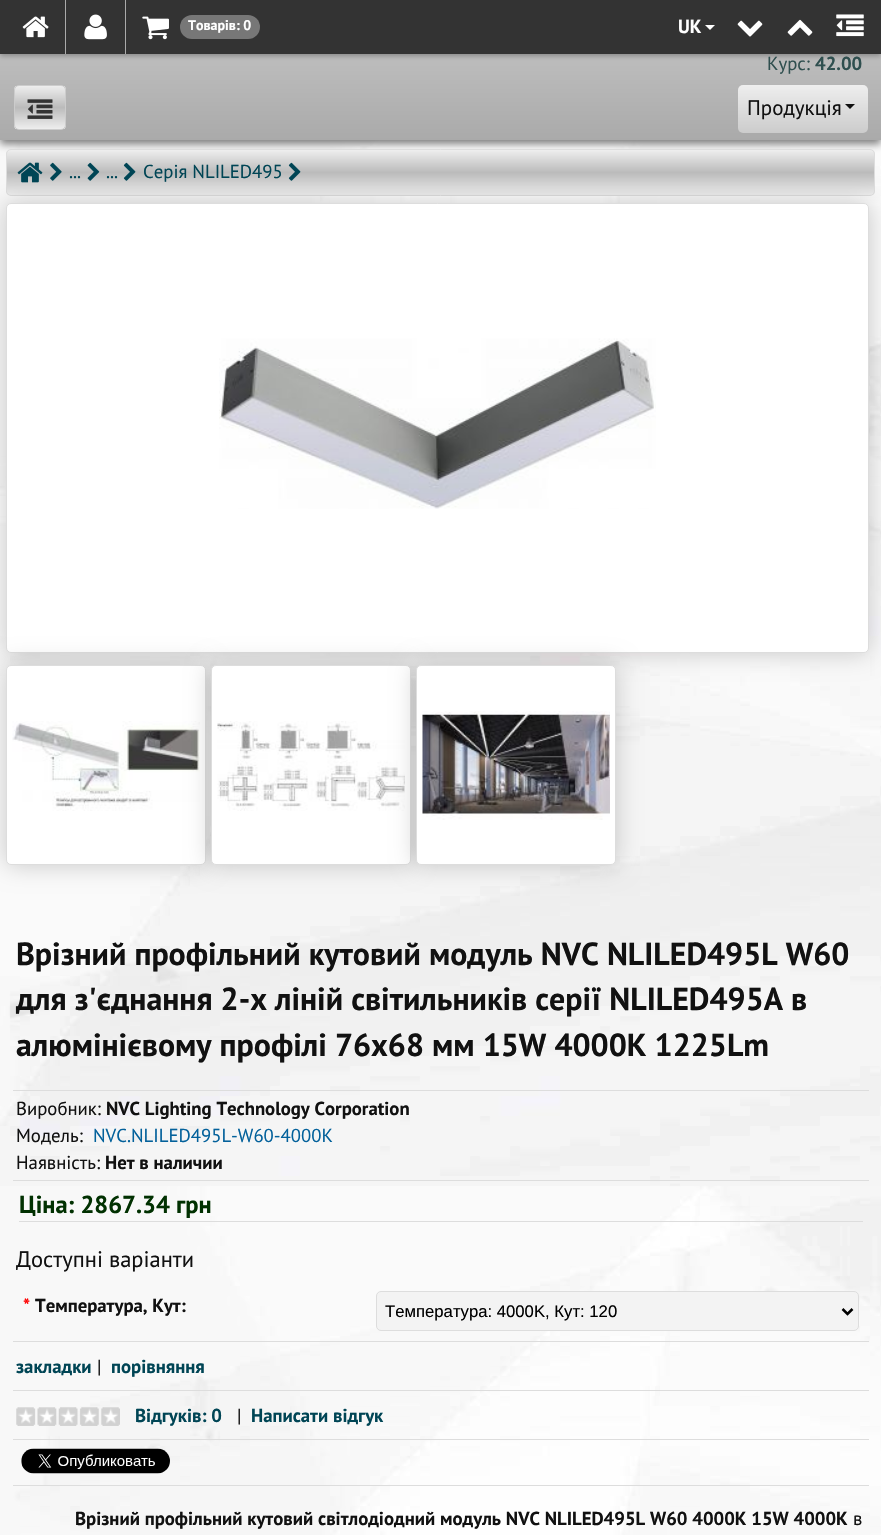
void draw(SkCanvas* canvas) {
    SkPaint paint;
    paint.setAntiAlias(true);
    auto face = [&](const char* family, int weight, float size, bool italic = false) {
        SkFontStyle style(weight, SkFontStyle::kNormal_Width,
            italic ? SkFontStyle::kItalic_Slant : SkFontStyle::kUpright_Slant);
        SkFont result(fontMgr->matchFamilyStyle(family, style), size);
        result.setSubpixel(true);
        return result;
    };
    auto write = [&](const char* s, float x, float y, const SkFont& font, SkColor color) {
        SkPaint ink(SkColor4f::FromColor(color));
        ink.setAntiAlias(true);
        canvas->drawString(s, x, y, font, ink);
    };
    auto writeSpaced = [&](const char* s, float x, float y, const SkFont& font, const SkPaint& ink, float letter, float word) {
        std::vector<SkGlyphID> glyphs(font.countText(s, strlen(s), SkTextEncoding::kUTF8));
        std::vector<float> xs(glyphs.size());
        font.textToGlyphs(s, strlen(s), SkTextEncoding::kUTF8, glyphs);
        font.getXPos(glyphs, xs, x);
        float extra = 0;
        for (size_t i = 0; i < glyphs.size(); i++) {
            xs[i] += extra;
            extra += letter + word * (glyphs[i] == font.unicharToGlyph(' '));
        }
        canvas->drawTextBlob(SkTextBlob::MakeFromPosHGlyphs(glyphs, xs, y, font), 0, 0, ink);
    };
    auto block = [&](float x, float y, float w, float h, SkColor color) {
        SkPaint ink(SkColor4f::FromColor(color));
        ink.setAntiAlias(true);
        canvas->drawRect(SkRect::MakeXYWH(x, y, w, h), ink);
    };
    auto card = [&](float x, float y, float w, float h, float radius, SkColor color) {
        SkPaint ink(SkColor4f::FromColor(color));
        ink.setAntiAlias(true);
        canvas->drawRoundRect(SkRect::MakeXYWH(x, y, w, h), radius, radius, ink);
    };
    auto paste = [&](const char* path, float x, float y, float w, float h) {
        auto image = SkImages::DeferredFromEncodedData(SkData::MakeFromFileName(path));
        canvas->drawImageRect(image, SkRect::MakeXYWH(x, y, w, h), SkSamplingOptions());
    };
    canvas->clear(SK_ColorWHITE);
    paste("pic1.png", 0, 140, 881, 1395);
    paint.setColor(SkColorSetRGB(124, 124, 124));
    paint.setMaskFilter(SkMaskFilter::MakeBlur(kNormal_SkBlurStyle, 4));
    canvas->drawRect(SkRect::MakeXYWH(0, -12, 881, 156), paint);
    paint.setMaskFilter(nullptr);
    {
        const SkColor colors[] = {SkColorSetRGB(238, 238, 238), SkColorSetRGB(170, 170, 170)};
        const float stops[] = {0, 1};
        const SkPoint ends[] = {{441, -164}, {441, 140}};
        paint.setShader(SkGradientShader::MakeLinear(ends, colors, stops, 2, SkTileMode::kClamp));
        paint.setAlpha(255);
    }
    canvas->drawRect(SkRect::MakeXYWH(0, 54, 881, 86), paint);
    paint.setShader(nullptr);
    paint.setColor(SkColorSetRGB(136, 136, 136));
    paint.setMaskFilter(SkMaskFilter::MakeBlur(kNormal_SkBlurStyle, 2.5f));
    canvas->drawRect(SkRect::MakeXYWH(0, 3, 881, 53), paint);
    paint.setMaskFilter(nullptr);
    block(0, 0, 881, 54, SkColorSetRGB(51, 51, 51));
    paste("pic2.png", 22, 16, 27, 22);
    block(65, 0, 1, 54, SkColorSetRGB(170, 170, 170));
    paste("pic3.png", 84, 14, 23, 26);
    block(125, 0, 1, 54, SkColorSetRGB(170, 170, 170));
    paste("pic4.png", 142, 16, 27, 24);
    card(180, 15, 80, 24, 12, SkColorSetRGB(119, 119, 119));
    auto kFont1 = face("PT Sans", 700, 14);
    write("Товарів: 0", 188, 30, kFont1, SK_ColorWHITE);
    auto kFont2 = face("PT Sans", 700, 18.75f);
    write("UK", 678, 33, kFont2, SK_ColorWHITE);
    paint.setColor(SK_ColorWHITE);
    canvas->drawPath(SkPathBuilder().moveTo(705, 25).lineTo(715, 25).lineTo(710, 30).close().detach(), paint);
    paste("pic5.png", 737, 20, 26, 17);
    paste("pic6.png", 787, 19, 26, 17);
    paste("pic7.png", 836, 14, 28, 23);
    auto kFont3 = face("PT Sans", 400, 18.75f);
    write("Курс:", 767, 70, kFont3, SkColorSetRGB(47, 79, 79));
    write("42.00", 815, 70, kFont2, SkColorSetRGB(47, 79, 79));
    canvas->save();
    canvas->clipPath(SkPathBuilder().moveTo(19, 85).lineTo(61, 85).cubicTo(64, 85, 66, 87, 66, 90).lineTo(66, 125).cubicTo(66, 128, 64, 130, 61, 130).lineTo(19, 130).cubicTo(16, 130, 14, 128, 14, 125).lineTo(14, 90).cubicTo(14, 87, 16, 85, 19, 85).close().detach(), true);
    {
        const SkColor colors[] = {SkColorSetRGB(238, 238, 238), SkColorSetRGB(187, 187, 187), SkColorSetRGB(238, 238, 238)};
        const float stops[] = {0, 0.5f, 1};
        const SkPoint ends[] = {{40, 86}, {40, 129}};
        paint.setShader(SkGradientShader::MakeLinear(ends, colors, stops, 3, SkTileMode::kClamp));
        paint.setAlpha(255);
    }
    canvas->drawRect(SkRect::MakeXYWH(14, 86, 52, 43), paint);
    canvas->restore();
    paint.setStyle(SkPaint::kStroke_Style);
    paint.setStrokeWidth(1);
    paint.setShader(nullptr);
    paint.setColor(SkColorSetRGB(204, 204, 204));
    canvas->drawRoundRect(SkRect::MakeXYWH(14.5f, 85.5f, 51, 44), 4.5f, 4.5f, paint);
    paste("pic8.png", 27, 99, 26, 20);
    paint.setStyle(SkPaint::kFill_Style);
    {
        const SkColor colors[] = {SkColorSetRGB(238, 238, 238), SkColorSetRGB(204, 204, 204)};
        const float stops[] = {0, 1};
        const SkPoint ends[] = {{803, 85}, {803, 133}};
        paint.setShader(SkGradientShader::MakeLinear(ends, colors, stops, 2, SkTileMode::kClamp));
        paint.setAlpha(255);
    }
    canvas->drawRoundRect(SkRect::MakeXYWH(738, 85, 130, 48), 5, 5, paint);
    auto kFont4 = face("PT Sans", 400, 21);
    write("Продукція", 747, 115, kFont4, SkColorSetRGB(17, 17, 17));
    paint.setShader(nullptr);
    paint.setColor(SkColorSetRGB(17, 17, 17));
    canvas->drawPath(SkPathBuilder().moveTo(845, 104).lineTo(855, 104).lineTo(850, 109).close().detach(), paint);
    canvas->save();
    canvas->clipPath(SkPathBuilder().moveTo(11, 149).lineTo(870, 149).cubicTo(873, 149, 875, 151, 875, 154).lineTo(875, 191).cubicTo(875, 194, 873, 196, 870, 196).lineTo(11, 196).cubicTo(8, 196, 6, 194, 6, 191).lineTo(6, 154).cubicTo(6, 151, 8, 149, 11, 149).close().detach(), true);
    {
        const SkColor colors[] = {SkColorSetRGB(238, 238, 238), SkColorSetRGB(187, 187, 187), SkColorSetRGB(238, 238, 238)};
        const float stops[] = {0, 0.5f, 1};
        const SkPoint ends[] = {{441, 150}, {441, 195}};
        paint.setShader(SkGradientShader::MakeLinear(ends, colors, stops, 3, SkTileMode::kClamp));
        paint.setAlpha(255);
    }
    canvas->drawRect(SkRect::MakeXYWH(6, 150, 869, 45), paint);
    canvas->restore();
    paint.setStyle(SkPaint::kStroke_Style);
    paint.setShader(nullptr);
    paint.setColor(SkColorSetRGB(221, 221, 221));
    canvas->drawRoundRect(SkRect::MakeXYWH(6.5f, 149.5f, 868, 46), 4.5f, 4.5f, paint);
    paste("pic9.png", 17, 162, 26, 21);
    paste("pic10.png", 50, 162, 12, 19);
    write("...", 69, 178, kFont3, SkColorSetRGB(0, 69, 85));
    paste("pic11.png", 87, 162, 13, 19);
    write("...", 106, 178, kFont3, SkColorSetRGB(0, 69, 85));
    paste("pic12.png", 123, 162, 13, 19);
    write("Серія NLILED495", 143, 178, kFont3, SkColorSetRGB(0, 69, 85));
    paste("pic12.png", 288, 162, 13, 19);
    paint.setStyle(SkPaint::kFill_Style);
    paint.setColor(SkColorSetARGB(51, 0, 0, 0));
    paint.setMaskFilter(SkMaskFilter::MakeBlur(kNormal_SkBlurStyle, 12.5f));
    canvas->drawRoundRect(SkRect::MakeXYWH(6, 203, 863, 450), 5, 5, paint);
    paint.setMaskFilter(nullptr);
    paint.setColor(SK_ColorWHITE);
    canvas->drawRoundRect(SkRect::MakeXYWH(6.5f, 203.5f, 862, 449), 4.5f, 4.5f, paint);
    paint.setStyle(SkPaint::kStroke_Style);
    paint.setColor(SkColorSetRGB(221, 221, 221));
    canvas->drawRoundRect(SkRect::MakeXYWH(6.5f, 203.5f, 862, 449), 4.5f, 4.5f, paint);
    paste("pic13.png", 219, 338, 437, 171);
    paint.setStyle(SkPaint::kFill_Style);
    paint.setColor(SkColorSetARGB(51, 0, 0, 0));
    paint.setMaskFilter(SkMaskFilter::MakeBlur(kNormal_SkBlurStyle, 12.5f));
    canvas->drawRoundRect(SkRect::MakeXYWH(6, 665, 200, 200), 5, 5, paint);
    paint.setMaskFilter(nullptr);
    paint.setColor(SK_ColorWHITE);
    canvas->drawRoundRect(SkRect::MakeXYWH(6.5f, 665.5f, 199, 199), 4.5f, 4.5f, paint);
    paint.setStyle(SkPaint::kStroke_Style);
    paint.setColor(SkColorSetRGB(221, 221, 221));
    canvas->drawRoundRect(SkRect::MakeXYWH(6.5f, 665.5f, 199, 199), 4.5f, 4.5f, paint);
    paste("pic14.png", 12, 721, 188, 90);
    paint.setStyle(SkPaint::kFill_Style);
    paint.setColor(SkColorSetARGB(51, 0, 0, 0));
    paint.setMaskFilter(SkMaskFilter::MakeBlur(kNormal_SkBlurStyle, 12.5f));
    canvas->drawRoundRect(SkRect::MakeXYWH(211, 665, 200, 200), 5, 5, paint);
    paint.setMaskFilter(nullptr);
    paint.setColor(SK_ColorWHITE);
    canvas->drawRoundRect(SkRect::MakeXYWH(211.5f, 665.5f, 199, 199), 4.5f, 4.5f, paint);
    paint.setStyle(SkPaint::kStroke_Style);
    paint.setColor(SkColorSetRGB(221, 221, 221));
    canvas->drawRoundRect(SkRect::MakeXYWH(211.5f, 665.5f, 199, 199), 4.5f, 4.5f, paint);
    paste("pic15.png", 217, 721, 188, 90);
    paint.setStyle(SkPaint::kFill_Style);
    paint.setColor(SkColorSetARGB(51, 0, 0, 0));
    paint.setMaskFilter(SkMaskFilter::MakeBlur(kNormal_SkBlurStyle, 12.5f));
    canvas->drawRoundRect(SkRect::MakeXYWH(416, 665, 200, 200), 5, 5, paint);
    paint.setMaskFilter(nullptr);
    paint.setColor(SK_ColorWHITE);
    canvas->drawRoundRect(SkRect::MakeXYWH(416.5f, 665.5f, 199, 199), 4.5f, 4.5f, paint);
    paint.setStyle(SkPaint::kStroke_Style);
    paint.setColor(SkColorSetRGB(221, 221, 221));
    canvas->drawRoundRect(SkRect::MakeXYWH(416.5f, 665.5f, 199, 199), 4.5f, 4.5f, paint);
    paste("pic16.png", 422, 711, 188, 109);
    block(13, 1090, 856, 1, SkColorSetRGB(221, 221, 221));
    auto kFont5 = face("PT Sans", 700, 31.9f);
    write("Врізний профільний кутовий модуль NVC NLILED495L W60", 16, 965, kFont5, SkColorSetRGB(17, 17, 17));
    write("для з'єднання 2-х ліній світильників серії NLILED495A в", 16, 1010, kFont5, SkColorSetRGB(17, 17, 17));
    write("алюмінієвому профілі 76х68 мм 15W 4000K 1225Lm", 16, 1056, kFont5, SkColorSetRGB(17, 17, 17));
    block(13, 1180, 856, 1, SkColorSetRGB(221, 221, 221));
    write("Виробник:", 16, 1115, kFont3, SkColorSetRGB(17, 17, 17));
    write("NVC Lighting Technology Corporation", 106, 1115, kFont2, SkColorSetRGB(17, 17, 17));
    write("Модель:", 16, 1142, kFont3, SkColorSetRGB(17, 17, 17));
    write("NVC.NLILED495L-W60-4000K", 93, 1142, kFont3, SkColorSetRGB(3, 97, 155));
    write("Наявність:", 16, 1169, kFont3, SkColorSetRGB(17, 17, 17));
    write("Нет в наличии", 105, 1169, kFont2, SkColorSetRGB(17, 17, 17));
    block(19, 1221, 844, 1, SkColorSetRGB(221, 221, 221));
    auto kFont6 = face("PT Sans", 700, 24.5f);
    write("Ціна: 2867.34 грн", 19, 1213, kFont6, SkColorSetRGB(1, 49, 1));
    block(13, 1341, 856, 1, SkColorSetRGB(221, 221, 221));
    auto kFont7 = face("PT Sans", 400, 22.5f);
    write("Доступні варіанти", 16, 1267, kFont7, SkColorSetRGB(17, 17, 17));
    write("*", 23, 1312, kFont2, SkColorSetRGB(255, 0, 0));
    write("Температура, Кут:", 35, 1312, kFont2, SkColorSetRGB(17, 17, 17));
    paint.setStyle(SkPaint::kFill_Style);
    paint.setColor(SkColorSetRGB(243, 243, 243));
    canvas->drawRoundRect(SkRect::MakeXYWH(376.5f, 1291.5f, 482, 39), 4.5f, 4.5f, paint);
    paint.setStyle(SkPaint::kStroke_Style);
    paint.setColor(SkColorSetRGB(221, 221, 221));
    canvas->drawRoundRect(SkRect::MakeXYWH(376.5f, 1291.5f, 482, 39), 4.5f, 4.5f, paint);
    paint.setStrokeWidth(2.5f);
    paint.setColor(SK_ColorBLACK);
    canvas->drawPath(SkPathBuilder().moveTo(842.5f, 1309).lineTo(847.5f, 1314).lineTo(852.5f, 1309).detach(), paint);
    auto kFont8 = face("Liberation Sans", 400, 16.7f);
    write("Температура: 4000K, Кут: 120", 385, 1317, kFont8, SK_ColorBLACK);
    block(13, 1390, 856, 1, SkColorSetRGB(221, 221, 221));
    write("закладки", 16, 1373, kFont2, SkColorSetRGB(0, 69, 85));
    write("|", 97, 1373, kFont3, SkColorSetRGB(17, 17, 17));
    write("порівняння", 111, 1373, kFont2, SkColorSetRGB(0, 69, 85));
    block(13, 1439, 856, 1, SkColorSetRGB(221, 221, 221));
    paste("pic17.png", 16, 1407, 104, 19);
    write("Відгуків: 0", 135, 1422, kFont2, SkColorSetRGB(0, 69, 85));
    write("|", 237, 1422, kFont3, SkColorSetRGB(17, 17, 17));
    write("Написати відгук", 251, 1422, kFont2, SkColorSetRGB(0, 69, 85));
    block(13, 1485, 856, 1, SkColorSetRGB(221, 221, 221));
    paste("pic18.png", 21, 1448, 149, 26);
    paint.setStyle(SkPaint::kFill_Style);
    paint.setColor(SkColorSetRGB(17, 17, 17));
    writeSpaced("Врізний профільний кутовий світлодіодний модуль NVC NLILED495L W60 4000K 15W 4000K", 75, 1525, kFont2, paint, 0, 0.1f);
    write("в", 853, 1525, kFont3, SkColorSetRGB(17, 17, 17));
}
